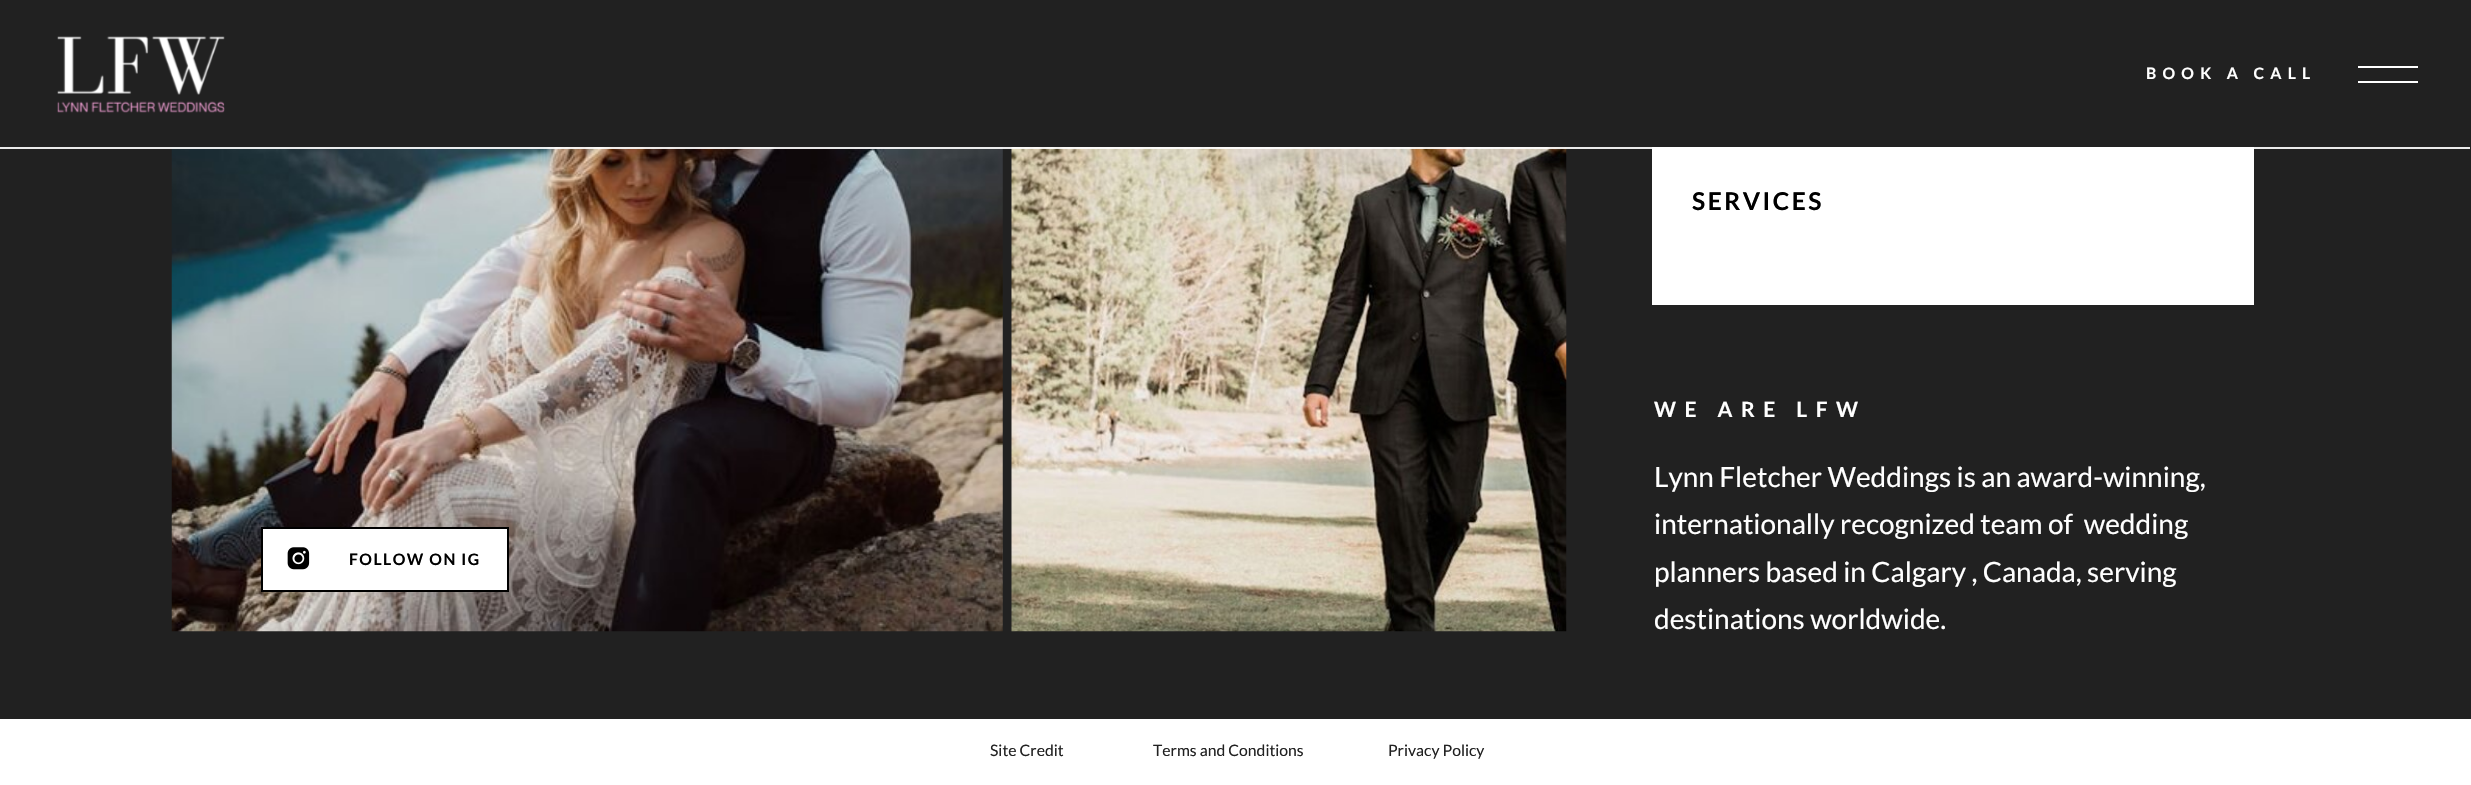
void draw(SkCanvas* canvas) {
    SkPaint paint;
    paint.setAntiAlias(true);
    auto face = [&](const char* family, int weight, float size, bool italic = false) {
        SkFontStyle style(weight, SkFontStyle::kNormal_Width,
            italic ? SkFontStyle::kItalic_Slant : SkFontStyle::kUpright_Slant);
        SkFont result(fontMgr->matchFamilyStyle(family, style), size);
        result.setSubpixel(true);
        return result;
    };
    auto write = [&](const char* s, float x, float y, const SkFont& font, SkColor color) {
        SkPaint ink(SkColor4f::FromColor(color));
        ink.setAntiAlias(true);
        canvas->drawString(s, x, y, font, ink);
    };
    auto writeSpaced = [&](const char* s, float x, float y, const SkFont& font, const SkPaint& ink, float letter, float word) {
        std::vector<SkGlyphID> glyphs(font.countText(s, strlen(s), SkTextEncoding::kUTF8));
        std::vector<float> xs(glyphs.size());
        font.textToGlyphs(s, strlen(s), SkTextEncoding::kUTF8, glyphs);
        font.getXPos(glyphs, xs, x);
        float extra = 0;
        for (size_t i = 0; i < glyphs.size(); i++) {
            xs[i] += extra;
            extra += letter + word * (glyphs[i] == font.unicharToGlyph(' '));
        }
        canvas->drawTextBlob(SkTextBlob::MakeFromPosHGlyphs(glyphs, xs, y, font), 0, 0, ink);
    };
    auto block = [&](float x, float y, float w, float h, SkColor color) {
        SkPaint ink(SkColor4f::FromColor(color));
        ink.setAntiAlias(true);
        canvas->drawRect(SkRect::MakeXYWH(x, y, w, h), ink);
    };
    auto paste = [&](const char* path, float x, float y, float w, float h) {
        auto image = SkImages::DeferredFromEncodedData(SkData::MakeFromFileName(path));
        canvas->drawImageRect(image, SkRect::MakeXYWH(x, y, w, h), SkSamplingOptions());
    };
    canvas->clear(SkColorSetRGB(33, 33, 33));
    paste("pic1.png", 57, 36, 168, 77);
    auto kFont1 = face("Lato", 700, 15.75f);
    paint.setColor(SK_ColorWHITE);
    writeSpaced("BOOK A CALL", 2146, 79, kFont1, paint, 6.25f, 0);
    block(2358, 66, 60, 2, SK_ColorWHITE);
    block(2358, 81, 60, 2, SK_ColorWHITE);
    paste("pic2.png", 171, 147, 832, 485);
    paste("pic3.png", 1011, 147, 556, 485);
    block(1652, 147, 602, 158, SK_ColorWHITE);
    block(0, 147, 2470, 2, SkColorSetARGB(230, 255, 255, 255));
    auto kFont2 = face("Lato", 700, 24.5f);
    paint.setColor(SK_ColorBLACK);
    writeSpaced("SERVICES", 1692, 210, kFont2, paint, 2.5f, 0);
    auto kFont3 = face("Lato", 700, 21);
    paint.setColor(SK_ColorWHITE);
    writeSpaced("WE ARE LFW", 1654, 417, kFont3, paint, 8.5f, 0);
    canvas->drawRect(SkRect::MakeXYWH(262, 528, 246, 63), paint);
    paint.setStyle(SkPaint::kStroke_Style);
    paint.setStrokeWidth(2);
    paint.setColor(SK_ColorBLACK);
    canvas->drawRect(SkRect::MakeXYWH(262, 528, 246, 63), paint);
    auto kFont4 = face("Lato", 400, 28);
    write("Lynn Fletcher Weddings is an award-winning,", 1654, 487, kFont4, SK_ColorWHITE);
    write("internationally recognized team of  wedding", 1654, 534, kFont4, SK_ColorWHITE);
    write("planners based in Calgary , Canada, serving", 1654, 582, kFont4, SK_ColorWHITE);
    write("destinations worldwide.", 1654, 629, kFont4, SK_ColorWHITE);
    paste("pic4.png", 287, 547, 23, 23);
    paint.setStyle(SkPaint::kFill_Style);
    writeSpaced("FOLLOW ON IG", 349, 565, kFont1, paint, 1.5f, 0);
    block(0, 719, 2471, 66, SK_ColorWHITE);
    auto kFont5 = face("Lato", 400, 15.75f);
    write("Site Credit", 990, 756, kFont5, SkColorSetRGB(33, 33, 33));
    write("Terms and Conditions", 1153, 756, kFont5, SkColorSetRGB(33, 33, 33));
    write("Privacy Policy", 1388, 756, kFont5, SkColorSetRGB(33, 33, 33));
}
